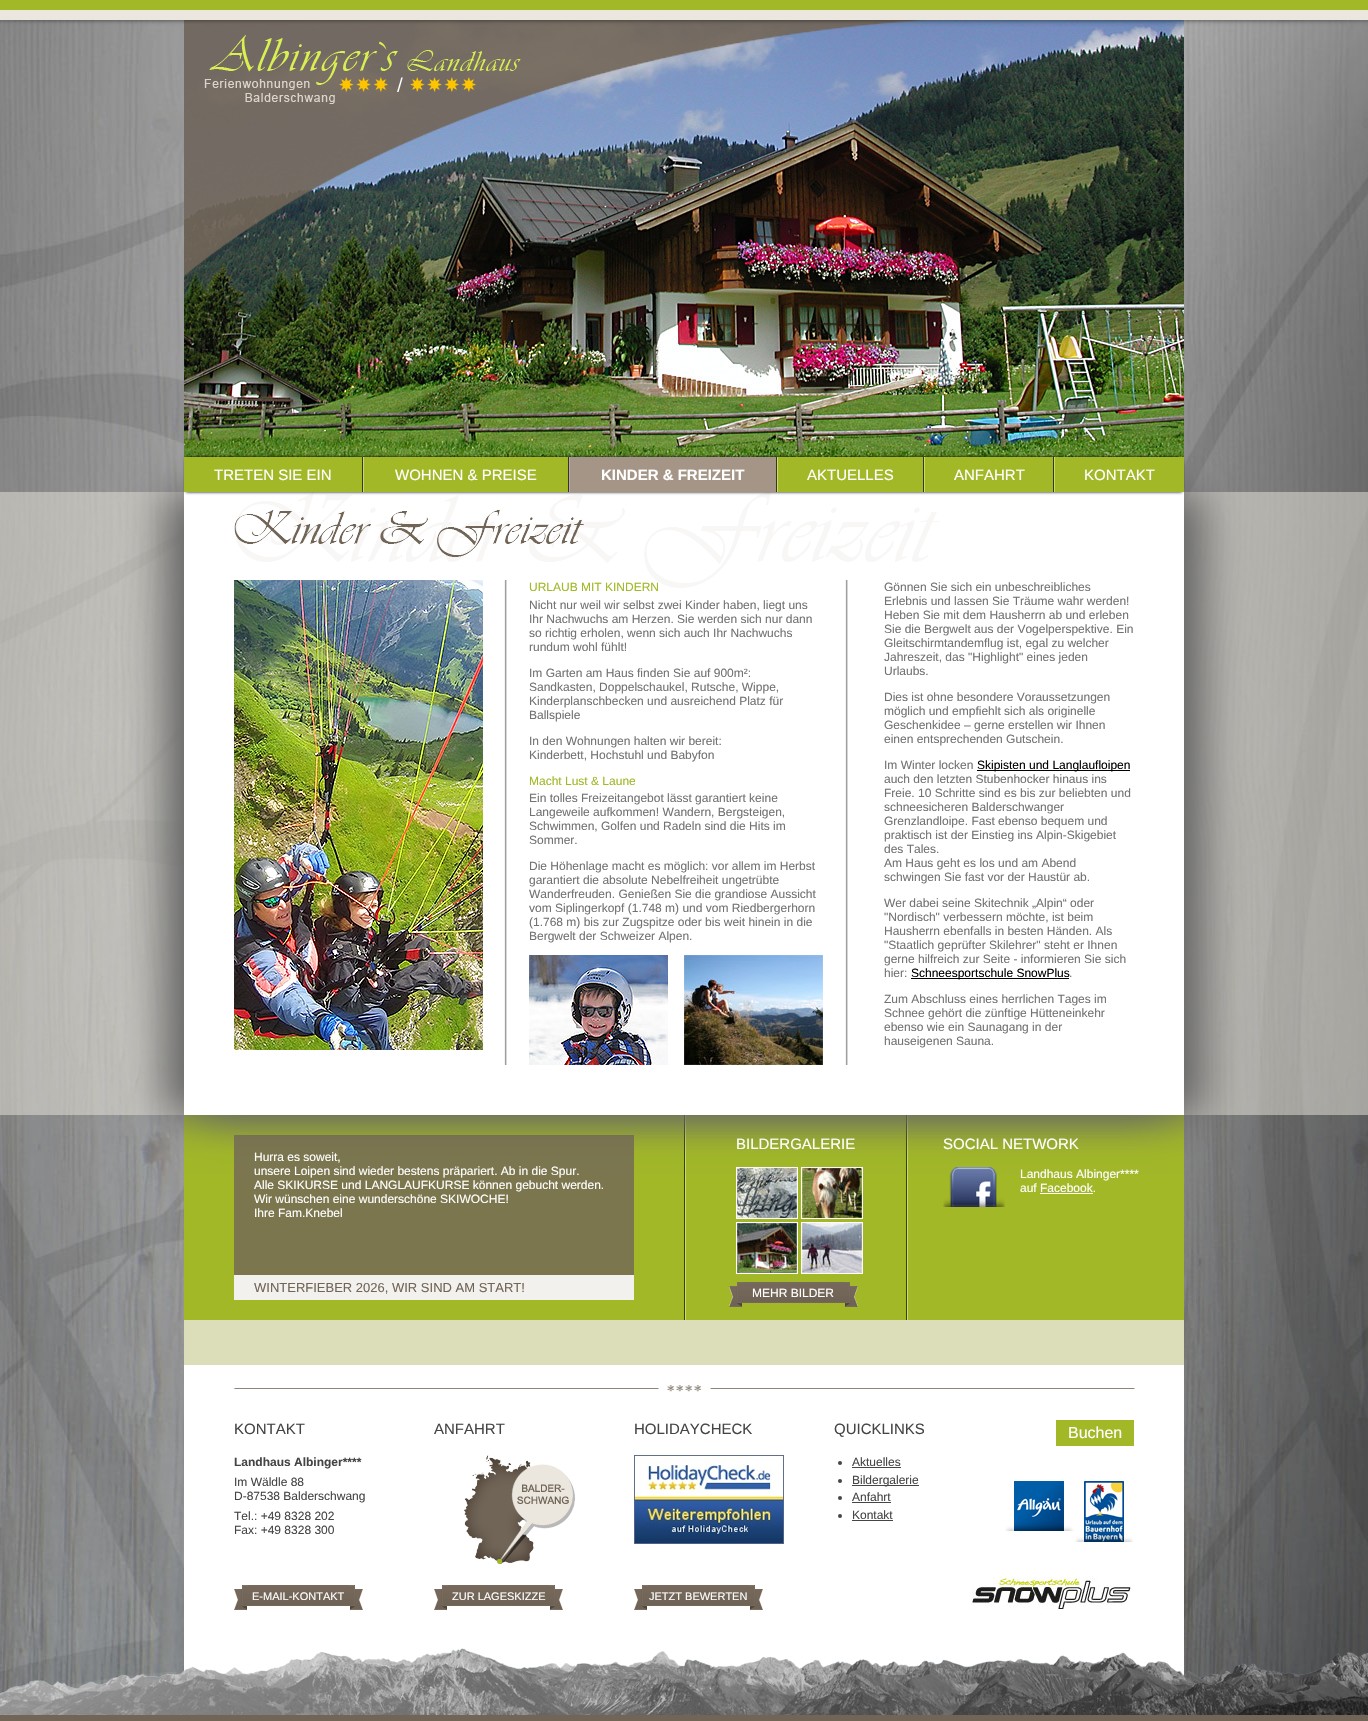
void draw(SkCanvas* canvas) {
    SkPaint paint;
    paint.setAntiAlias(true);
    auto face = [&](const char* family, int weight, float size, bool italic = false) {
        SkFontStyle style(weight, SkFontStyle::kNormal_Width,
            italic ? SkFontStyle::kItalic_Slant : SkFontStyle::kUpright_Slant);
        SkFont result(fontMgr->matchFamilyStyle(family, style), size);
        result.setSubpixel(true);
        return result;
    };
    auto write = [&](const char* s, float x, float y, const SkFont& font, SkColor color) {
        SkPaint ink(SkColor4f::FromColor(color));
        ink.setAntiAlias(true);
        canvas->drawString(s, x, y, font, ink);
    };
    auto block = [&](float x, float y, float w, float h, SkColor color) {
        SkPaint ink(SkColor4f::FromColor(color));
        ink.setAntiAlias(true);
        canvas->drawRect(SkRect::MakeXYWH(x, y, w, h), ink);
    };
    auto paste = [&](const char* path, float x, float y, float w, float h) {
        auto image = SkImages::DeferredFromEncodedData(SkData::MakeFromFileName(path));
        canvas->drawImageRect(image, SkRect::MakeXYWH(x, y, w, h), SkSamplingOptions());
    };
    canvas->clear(SK_ColorWHITE);
    paste("pic1.png", 0, 20, 1368, 1674);
    block(0, 492, 1368, 623, SkColorSetARGB(128, 235, 231, 222));
    block(184, 1115, 1000, 205, SkColorSetRGB(162, 184, 39));
    block(684, 1115, 1, 205, SkColorSetRGB(56, 63, 13));
    block(906, 1115, 1, 205, SkColorSetRGB(56, 63, 13));
    block(685, 1115, 1, 205, SkColorSetRGB(203, 224, 93));
    paint.setStyle(SkPaint::kStroke_Style);
    paint.setStrokeWidth(1);
    paint.setColor(SK_ColorWHITE);
    canvas->drawRect(SkRect::MakeXYWH(736.5f, 1167.5f, 61, 51), paint);
    paste("pic11.png", 737, 1168, 60, 50);
    canvas->drawRect(SkRect::MakeXYWH(801.5f, 1167.5f, 61, 51), paint);
    paste("pic12.png", 802, 1168, 60, 50);
    block(907, 1115, 1, 205, SkColorSetRGB(203, 224, 93));
    paste("pic16.png", 943, 1167, 62, 40);
    paint.setStyle(SkPaint::kFill_Style);
    paint.setColor(SkColorSetRGB(102, 102, 102));
    paint.setMaskFilter(SkMaskFilter::MakeBlur(kNormal_SkBlurStyle, 20));
    canvas->drawRect(SkRect::MakeXYWH(164, 492, 1000, 623), paint);
    paint.setMaskFilter(nullptr);
    paint.setMaskFilter(SkMaskFilter::MakeBlur(kNormal_SkBlurStyle, 20));
    canvas->drawRect(SkRect::MakeXYWH(204, 492, 1000, 623), paint);
    paint.setMaskFilter(nullptr);
    paste("pic3.png", 184, 20, 1000, 437);
    paste("pic4.png", 184, 20, 745, 256);
    paste("pic2.png", 0, 0, 1368, 27);
    paste("pic5.png", 204, 35, 317, 69);
    block(184, 492, 1000, 623, SK_ColorWHITE);
    paste("pic8.png", 504, 580, 344, 485);
    auto kFont1 = face("Liberation Sans", 400, 12);
    write("URLAUB MIT KINDERN", 529, 591, kFont1, SkColorSetRGB(162, 184, 39));
    write("Gönnen Sie sich ein unbeschreibliches", 884, 591, kFont1, SkColorSetRGB(114, 114, 114));
    paste("pic6.png", 234, 492, 706, 96);
    paint.setColor(SK_ColorBLACK);
    paint.setMaskFilter(SkMaskFilter::MakeBlur(kNormal_SkBlurStyle, 1.5f));
    canvas->drawRect(SkRect::MakeXYWH(186, 461, 996, 31), paint);
    paint.setMaskFilter(nullptr);
    paint.setMaskFilter(SkMaskFilter::MakeBlur(kNormal_SkBlurStyle, 1.5f));
    canvas->drawRect(SkRect::MakeXYWH(186, 457, 996, 31), paint);
    paint.setMaskFilter(nullptr);
    block(184, 457, 1000, 35, SkColorSetRGB(162, 184, 39));
    block(362, 457, 1, 35, SkColorSetRGB(57, 51, 46));
    auto kFont2 = face("Liberation Sans", 400, 15);
    write("TRETEN SIE EIN", 214, 480, kFont2, SK_ColorWHITE);
    block(568, 457, 1, 35, SkColorSetRGB(57, 51, 46));
    block(363, 457, 1, 35, SkColorSetRGB(203, 223, 93));
    write("WOHNEN & PREISE", 395, 480, kFont2, SK_ColorWHITE);
    block(776, 457, 1, 35, SkColorSetRGB(57, 51, 46));
    block(569, 457, 1, 35, SkColorSetRGB(182, 170, 158));
    block(570, 457, 206, 35, SkColorSetRGB(164, 149, 134));
    auto kFont3 = face("Liberation Sans", 700, 15);
    write("KINDER & FREIZEIT", 601, 480, kFont3, SK_ColorWHITE);
    block(923, 457, 1, 35, SkColorSetRGB(57, 51, 46));
    block(777, 457, 1, 35, SkColorSetRGB(203, 223, 93));
    write("AKTUELLES", 807, 480, kFont2, SK_ColorWHITE);
    block(1053, 457, 1, 35, SkColorSetRGB(57, 51, 46));
    block(924, 457, 1, 35, SkColorSetRGB(203, 223, 93));
    write("ANFAHRT", 954, 480, kFont2, SK_ColorWHITE);
    block(1054, 457, 1, 35, SkColorSetRGB(203, 223, 93));
    write("KONTAKT", 1084, 480, kFont2, SK_ColorWHITE);
    paste("pic7.png", 234, 580, 249, 470);
    write("Nicht nur weil wir selbst zwei Kinder haben, liegt uns", 529, 609, kFont1, SkColorSetRGB(114, 114, 114));
    write("Ihr Nachwuchs am Herzen. Sie werden sich nur dann", 529, 623, kFont1, SkColorSetRGB(114, 114, 114));
    write("so richtig erholen, wenn sich auch Ihr Nachwuchs", 529, 637, kFont1, SkColorSetRGB(114, 114, 114));
    write("rundum wohl fühlt!", 529, 651, kFont1, SkColorSetRGB(114, 114, 114));
    write("Im Garten am Haus finden Sie auf 900m²:", 529, 677, kFont1, SkColorSetRGB(114, 114, 114));
    write("Sandkasten, Doppelschaukel, Rutsche, Wippe,", 529, 691, kFont1, SkColorSetRGB(114, 114, 114));
    write("Kinderplanschbecken und ausreichend Platz für", 529, 705, kFont1, SkColorSetRGB(114, 114, 114));
    write("Ballspiele", 529, 719, kFont1, SkColorSetRGB(114, 114, 114));
    write("In den Wohnungen halten wir bereit:", 529, 745, kFont1, SkColorSetRGB(114, 114, 114));
    write("Kinderbett, Hochstuhl und Babyfon", 529, 759, kFont1, SkColorSetRGB(114, 114, 114));
    write("Macht Lust & Laune", 529, 785, kFont1, SkColorSetRGB(162, 184, 39));
    write("Ein tolles Freizeitangebot lässt garantiert keine", 529, 802, kFont1, SkColorSetRGB(114, 114, 114));
    write("Langeweile aufkommen! Wandern, Bergsteigen,", 529, 816, kFont1, SkColorSetRGB(114, 114, 114));
    write("Schwimmen, Golfen und Radeln sind die Hits im", 529, 830, kFont1, SkColorSetRGB(114, 114, 114));
    write("Sommer.", 529, 844, kFont1, SkColorSetRGB(114, 114, 114));
    write("Die Höhenlage macht es möglich: vor allem im Herbst", 529, 870, kFont1, SkColorSetRGB(114, 114, 114));
    write("garantiert die absolute Nebelfreiheit ungetrübte", 529, 884, kFont1, SkColorSetRGB(114, 114, 114));
    write("Wanderfreuden. Genießen Sie die grandiose Aussicht", 529, 898, kFont1, SkColorSetRGB(114, 114, 114));
    write("vom Siplingerkopf (1.748 m) und vom Riedbergerhorn", 529, 912, kFont1, SkColorSetRGB(114, 114, 114));
    write("(1.768 m) bis zur Zugspitze oder bis weit hinein in die", 529, 926, kFont1, SkColorSetRGB(114, 114, 114));
    write("Bergwelt der Schweizer Alpen.", 529, 940, kFont1, SkColorSetRGB(114, 114, 114));
    paste("pic9.png", 529, 955, 139, 110);
    paste("pic10.png", 684, 955, 139, 110);
    write("Erlebnis und lassen Sie Träume wahr werden!", 884, 605, kFont1, SkColorSetRGB(114, 114, 114));
    write("Heben Sie mit dem Hausherrn ab und erleben", 884, 619, kFont1, SkColorSetRGB(114, 114, 114));
    write("Sie die Bergwelt aus der Vogelperspektive. Ein", 884, 633, kFont1, SkColorSetRGB(114, 114, 114));
    write("Gleitschirmtandemflug ist, egal zu welcher", 884, 647, kFont1, SkColorSetRGB(114, 114, 114));
    write("Jahreszeit, das \"Highlight\" eines jeden", 884, 661, kFont1, SkColorSetRGB(114, 114, 114));
    write("Urlaubs.", 884, 675, kFont1, SkColorSetRGB(114, 114, 114));
    write("Dies ist ohne besondere Voraussetzungen", 884, 701, kFont1, SkColorSetRGB(114, 114, 114));
    write("möglich und empfiehlt sich als originelle", 884, 715, kFont1, SkColorSetRGB(114, 114, 114));
    write("Geschenkidee – gerne erstellen wir Ihnen", 884, 729, kFont1, SkColorSetRGB(114, 114, 114));
    write("einen entsprechenden Gutschein.", 884, 743, kFont1, SkColorSetRGB(114, 114, 114));
    write("Im Winter locken", 884, 769, kFont1, SkColorSetRGB(114, 114, 114));
    block(977, 770, 153, 1, SK_ColorBLACK);
    write("Skipisten und Langlaufloipen", 977, 769, kFont1, SK_ColorBLACK);
    write("auch den letzten Stubenhocker hinaus ins", 884, 783, kFont1, SkColorSetRGB(114, 114, 114));
    write("Freie. 10 Schritte sind es bis zur beliebten und", 884, 797, kFont1, SkColorSetRGB(114, 114, 114));
    write("schneesicheren Balderschwanger", 884, 811, kFont1, SkColorSetRGB(114, 114, 114));
    write("Grenzlandloipe. Fast ebenso bequem und", 884, 825, kFont1, SkColorSetRGB(114, 114, 114));
    write("praktisch ist der Einstieg ins Alpin-Skigebiet", 884, 839, kFont1, SkColorSetRGB(114, 114, 114));
    write("des Tales.", 884, 853, kFont1, SkColorSetRGB(114, 114, 114));
    write("Am Haus geht es los und am Abend", 884, 867, kFont1, SkColorSetRGB(114, 114, 114));
    write("schwingen Sie fast vor der Haustür ab.", 884, 881, kFont1, SkColorSetRGB(114, 114, 114));
    write("Wer dabei seine Skitechnik „Alpin“ oder", 884, 907, kFont1, SkColorSetRGB(114, 114, 114));
    write("\"Nordisch\" verbessern möchte, ist beim", 884, 921, kFont1, SkColorSetRGB(114, 114, 114));
    write("Hausherrn ebenfalls in besten Händen. Als", 884, 935, kFont1, SkColorSetRGB(114, 114, 114));
    write("\"Staatlich geprüfter Skilehrer\" steht er Ihnen", 884, 949, kFont1, SkColorSetRGB(114, 114, 114));
    write("gerne hilfreich zur Seite - informieren Sie sich", 884, 963, kFont1, SkColorSetRGB(114, 114, 114));
    write("hier:", 884, 977, kFont1, SkColorSetRGB(114, 114, 114));
    block(911, 978, 158, 1, SK_ColorBLACK);
    write("Schneesportschule SnowPlus", 911, 977, kFont1, SK_ColorBLACK);
    write(".", 1069, 977, kFont1, SkColorSetRGB(114, 114, 114));
    write("Zum Abschluss eines herrlichen Tages im", 884, 1003, kFont1, SkColorSetRGB(114, 114, 114));
    write("Schnee gehört die zünftige Hütteneinkehr", 884, 1017, kFont1, SkColorSetRGB(114, 114, 114));
    write("ebenso wie ein Saunagang in der", 884, 1031, kFont1, SkColorSetRGB(114, 114, 114));
    write("hauseigenen Sauna.", 884, 1045, kFont1, SkColorSetRGB(114, 114, 114));
    block(184, 1320, 1000, 45, SkColorSetRGB(220, 222, 185));
    block(234, 1135, 400, 140, SkColorSetARGB(204, 113, 101, 88));
    write("Hurra es soweit,", 254, 1161, kFont1, SK_ColorWHITE);
    write("unsere Loipen sind wieder bestens präpariert. Ab in die Spur.", 254, 1175, kFont1, SK_ColorWHITE);
    write("Alle SKIKURSE und LANGLAUFKURSE können gebucht werden.", 254, 1189, kFont1, SK_ColorWHITE);
    write("Wir wünschen eine wunderschöne SKIWOCHE!", 254, 1203, kFont1, SK_ColorWHITE);
    write("Ihre Fam.Knebel", 254, 1217, kFont1, SK_ColorWHITE);
    block(234, 1275, 400, 25, SkColorSetRGB(242, 241, 237));
    auto kFont4 = face("Liberation Sans", 400, 13);
    write("WINTERFIEBER 2026, WIR SIND AM START!", 254, 1292, kFont4, SkColorSetRGB(113, 101, 88));
    write("BILDERGALERIE", 736, 1149, kFont2, SK_ColorWHITE);
    paint.setStyle(SkPaint::kStroke_Style);
    paint.setColor(SK_ColorWHITE);
    canvas->drawRect(SkRect::MakeXYWH(736.5f, 1222.5f, 61, 51), paint);
    paste("pic13.png", 737, 1223, 60, 50);
    canvas->drawRect(SkRect::MakeXYWH(801.5f, 1222.5f, 61, 51), paint);
    paste("pic14.png", 802, 1223, 60, 50);
    paste("pic15.png", 729, 1282, 129, 25);
    write("MEHR BILDER", 752, 1297, kFont1, SK_ColorWHITE);
    write("SOCIAL NETWORK", 943, 1149, kFont2, SK_ColorWHITE);
    write("Landhaus Albinger****", 1020, 1178, kFont1, SK_ColorWHITE);
    write("auf Facebook.", 1020, 1192, kFont1, SK_ColorWHITE);
    block(1040, 1193, 53, 1, SK_ColorWHITE);
    block(184, 1365, 1000, 311, SK_ColorWHITE);
    paste("pic17.png", 184, 1385, 951, 7);
    write("KONTAKT", 234, 1434, kFont2, SkColorSetRGB(69, 69, 69));
    auto kFont5 = face("Liberation Sans", 700, 12);
    write("Landhaus Albinger****", 234, 1466, kFont5, SkColorSetRGB(69, 69, 69));
    write("Im Wäldle 88", 234, 1486, kFont1, SkColorSetRGB(69, 69, 69));
    write("D-87538 Balderschwang", 234, 1500, kFont1, SkColorSetRGB(69, 69, 69));
    write("Tel.: +49 8328 202", 234, 1520, kFont1, SkColorSetRGB(69, 69, 69));
    write("Fax: +49 8328 300", 234, 1534, kFont1, SkColorSetRGB(69, 69, 69));
    paste("pic18.png", 234, 1585, 129, 25);
    auto kFont6 = face("Liberation Sans", 400, 11);
    write("E-MAIL-KONTAKT", 252, 1600, kFont6, SK_ColorWHITE);
    write("ANFAHRT", 434, 1434, kFont2, SkColorSetRGB(69, 69, 69));
    paste("pic19.png", 464, 1455, 112, 109);
    paste("pic18.png", 434, 1585, 129, 25);
    write("ZUR LAGESKIZZE", 452, 1600, kFont6, SK_ColorWHITE);
    write("HOLIDAYCHECK", 634, 1434, kFont2, SkColorSetRGB(69, 69, 69));
    paste("pic20.png", 634, 1455, 150, 89);
    paste("pic18.png", 634, 1585, 129, 25);
    write("JETZT BEWERTEN", 649, 1600, kFont6, SK_ColorWHITE);
    write("QUICKLINKS", 834, 1434, kFont2, SkColorSetRGB(69, 69, 69));
    paint.setStyle(SkPaint::kFill_Style);
    paint.setColor(SkColorSetRGB(69, 69, 69));
    canvas->drawCircle(840, 1463, 2, paint);
    write("Aktuelles", 852, 1466, kFont1, SkColorSetRGB(69, 69, 69));
    block(852, 1467, 49, 1, SkColorSetRGB(69, 69, 69));
    canvas->drawCircle(840, 1481, 2, paint);
    block(852, 1485, 67, 1, SkColorSetRGB(69, 69, 69));
    write("Bildergalerie", 852, 1484, kFont1, SkColorSetRGB(69, 69, 69));
    canvas->drawCircle(840, 1498, 2, paint);
    write("Anfahrt", 852, 1501, kFont1, SkColorSetRGB(69, 69, 69));
    block(852, 1502, 39, 1, SkColorSetRGB(69, 69, 69));
    canvas->drawCircle(840, 1516, 2, paint);
    write("Kontakt", 852, 1519, kFont1, SkColorSetRGB(69, 69, 69));
    block(852, 1520, 41, 1, SkColorSetRGB(69, 69, 69));
    block(1056, 1420, 78, 26, SkColorSetRGB(162, 184, 39));
    auto kFont7 = face("Liberation Sans", 400, 16);
    write("Buchen", 1068, 1438, kFont7, SK_ColorWHITE);
    paste("pic21.png", 1005, 1481, 69, 50);
    paste("pic22.png", 1075, 1481, 59, 61);
    paste("pic23.png", 971, 1577, 161, 32);
    paste("pic24.png", 0, 1648, 1368, 73);
}
